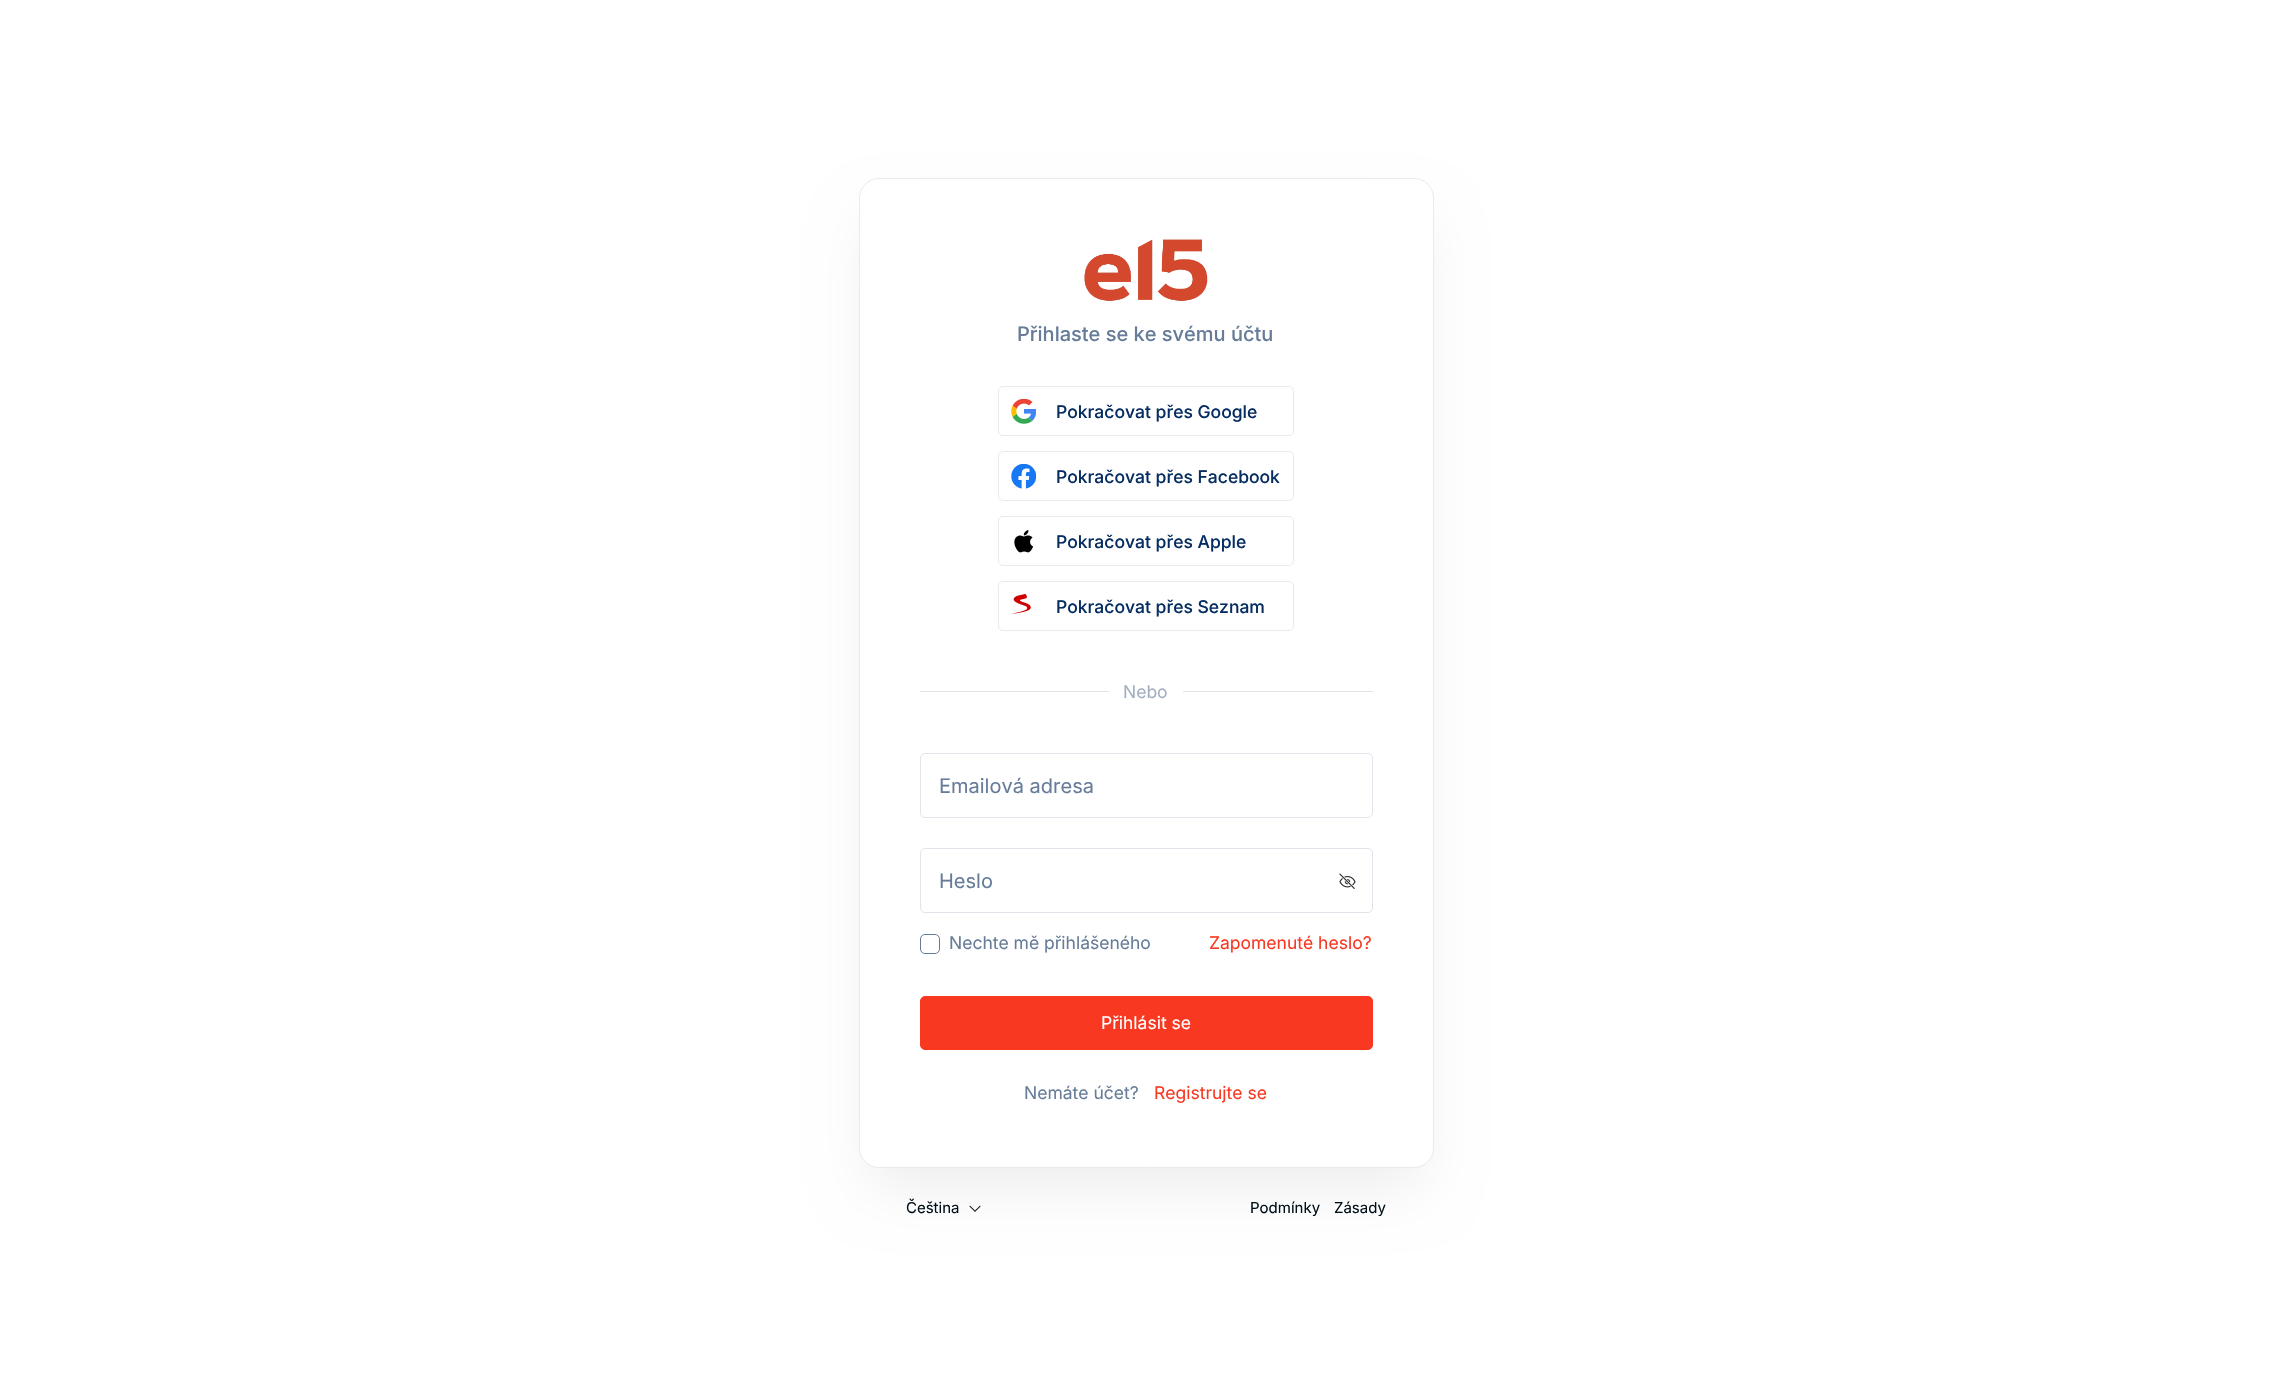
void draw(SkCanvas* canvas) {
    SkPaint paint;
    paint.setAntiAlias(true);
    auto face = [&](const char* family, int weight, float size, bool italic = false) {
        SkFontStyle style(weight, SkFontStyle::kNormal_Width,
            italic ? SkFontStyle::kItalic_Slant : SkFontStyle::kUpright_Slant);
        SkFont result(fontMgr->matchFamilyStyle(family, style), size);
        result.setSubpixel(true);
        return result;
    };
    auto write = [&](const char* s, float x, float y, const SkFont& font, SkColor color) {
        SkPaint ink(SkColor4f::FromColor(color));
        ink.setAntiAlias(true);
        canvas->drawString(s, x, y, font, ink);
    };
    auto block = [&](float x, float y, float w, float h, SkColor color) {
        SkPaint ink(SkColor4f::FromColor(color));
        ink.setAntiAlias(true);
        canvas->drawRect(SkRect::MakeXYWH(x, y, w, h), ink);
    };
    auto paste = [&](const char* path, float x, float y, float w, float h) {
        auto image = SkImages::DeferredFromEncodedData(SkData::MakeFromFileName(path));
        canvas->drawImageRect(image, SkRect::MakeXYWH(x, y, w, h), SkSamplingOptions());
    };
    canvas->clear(SK_ColorWHITE);
    paint.setColor(SkColorSetARGB(20, 0, 0, 0));
    paint.setMaskFilter(SkMaskFilter::MakeBlur(kNormal_SkBlurStyle, 30));
    canvas->drawRoundRect(SkRect::MakeXYWH(874, 223, 545, 960), 5, 5, paint);
    paint.setMaskFilter(nullptr);
    paint.setColor(SK_ColorWHITE);
    canvas->drawRoundRect(SkRect::MakeXYWH(859.5f, 178.5f, 574, 989), 19.5f, 19.5f, paint);
    paint.setStyle(SkPaint::kStroke_Style);
    paint.setStrokeWidth(1);
    paint.setColor(SkColorSetRGB(234, 234, 234));
    canvas->drawRoundRect(SkRect::MakeXYWH(859.5f, 178.5f, 574, 989), 19.5f, 19.5f, paint);
    paste("pic1.png", 1084, 239, 124, 62);
    auto kFont1 = face("Inter", 500, 20);
    write("Přihlaste se ke svému účtu", 1017, 341, kFont1, SkColorSetRGB(102, 124, 153));
    canvas->drawRoundRect(SkRect::MakeXYWH(998.5f, 386.5f, 295, 49), 4.5f, 4.5f, paint);
    paste("pic2.png", 1011, 399, 25, 25);
    auto kFont2 = face("Inter", 500, 17.5f);
    write("Pokračovat přes Google", 1056, 418, kFont2, SkColorSetRGB(5, 45, 97));
    canvas->drawRoundRect(SkRect::MakeXYWH(998.5f, 451.5f, 295, 49), 4.5f, 4.5f, paint);
    paste("pic3.png", 1011, 464, 25, 25);
    write("Pokračovat přes Facebook", 1056, 483, kFont2, SkColorSetRGB(5, 45, 97));
    canvas->drawRoundRect(SkRect::MakeXYWH(998.5f, 516.5f, 295, 49), 4.5f, 4.5f, paint);
    paste("pic4.png", 1014, 530, 20, 23);
    write("Pokračovat přes Apple", 1056, 548, kFont2, SkColorSetRGB(5, 45, 97));
    canvas->drawRoundRect(SkRect::MakeXYWH(998.5f, 581.5f, 295, 49), 4.5f, 4.5f, paint);
    paste("pic5.png", 1012, 594, 19, 20);
    write("Pokračovat přes Seznam", 1056, 613, kFont2, SkColorSetRGB(5, 45, 97));
    block(920, 691, 453, 1, SkColorSetRGB(224, 229, 235));
    block(1109, 691, 74, 1, SK_ColorWHITE);
    auto kFont3 = face("Inter", 400, 17.5f);
    write("Nebo", 1123, 698, kFont3, SkColorSetRGB(163, 176, 194));
    paint.setColor(SkColorSetRGB(224, 229, 235));
    canvas->drawRoundRect(SkRect::MakeXYWH(920.5f, 753.5f, 452, 64), 4.5f, 4.5f, paint);
    auto kFont4 = face("Inter", 400, 20);
    write("Emailová adresa", 939, 793, kFont4, SkColorSetRGB(102, 124, 153));
    canvas->drawRoundRect(SkRect::MakeXYWH(920.5f, 848.5f, 452, 64), 4.5f, 4.5f, paint);
    write("Heslo", 939, 888, kFont4, SkColorSetRGB(102, 124, 153));
    paste("pic6.png", 1339, 873, 17, 16);
    paint.setColor(SkColorSetRGB(102, 124, 153));
    canvas->drawRoundRect(SkRect::MakeXYWH(920.5f, 934.5f, 19, 19), 4.5f, 4.5f, paint);
    write("Nechte mě přihlášeného", 949, 949, kFont3, SkColorSetRGB(102, 124, 153));
    write("Zapomenuté heslo?", 1209, 949, kFont3, SkColorSetRGB(249, 56, 34));
    paint.setStyle(SkPaint::kFill_Style);
    paint.setColor(SkColorSetRGB(249, 56, 34));
    canvas->drawRoundRect(SkRect::MakeXYWH(920.5f, 996.5f, 452, 53), 4.5f, 4.5f, paint);
    paint.setStyle(SkPaint::kStroke_Style);
    canvas->drawRoundRect(SkRect::MakeXYWH(920.5f, 996.5f, 452, 53), 4.5f, 4.5f, paint);
    write("Přihlásit se", 1101, 1029, kFont3, SK_ColorWHITE);
    write("Nemáte účet?", 1024, 1099, kFont3, SkColorSetRGB(102, 124, 153));
    write("Registrujte se", 1154, 1099, kFont3, SkColorSetRGB(249, 56, 34));
    auto kFont5 = face("Inter", 400, 15);
    write("Čeština", 906, 1213, kFont5, SkColorSetRGB(0, 16, 25));
    paste("pic7.png", 969, 1205, 12, 7);
    write("Podmínky", 1250, 1213, kFont5, SkColorSetRGB(0, 16, 25));
    write("Zásady", 1334, 1213, kFont5, SkColorSetRGB(0, 16, 25));
}
